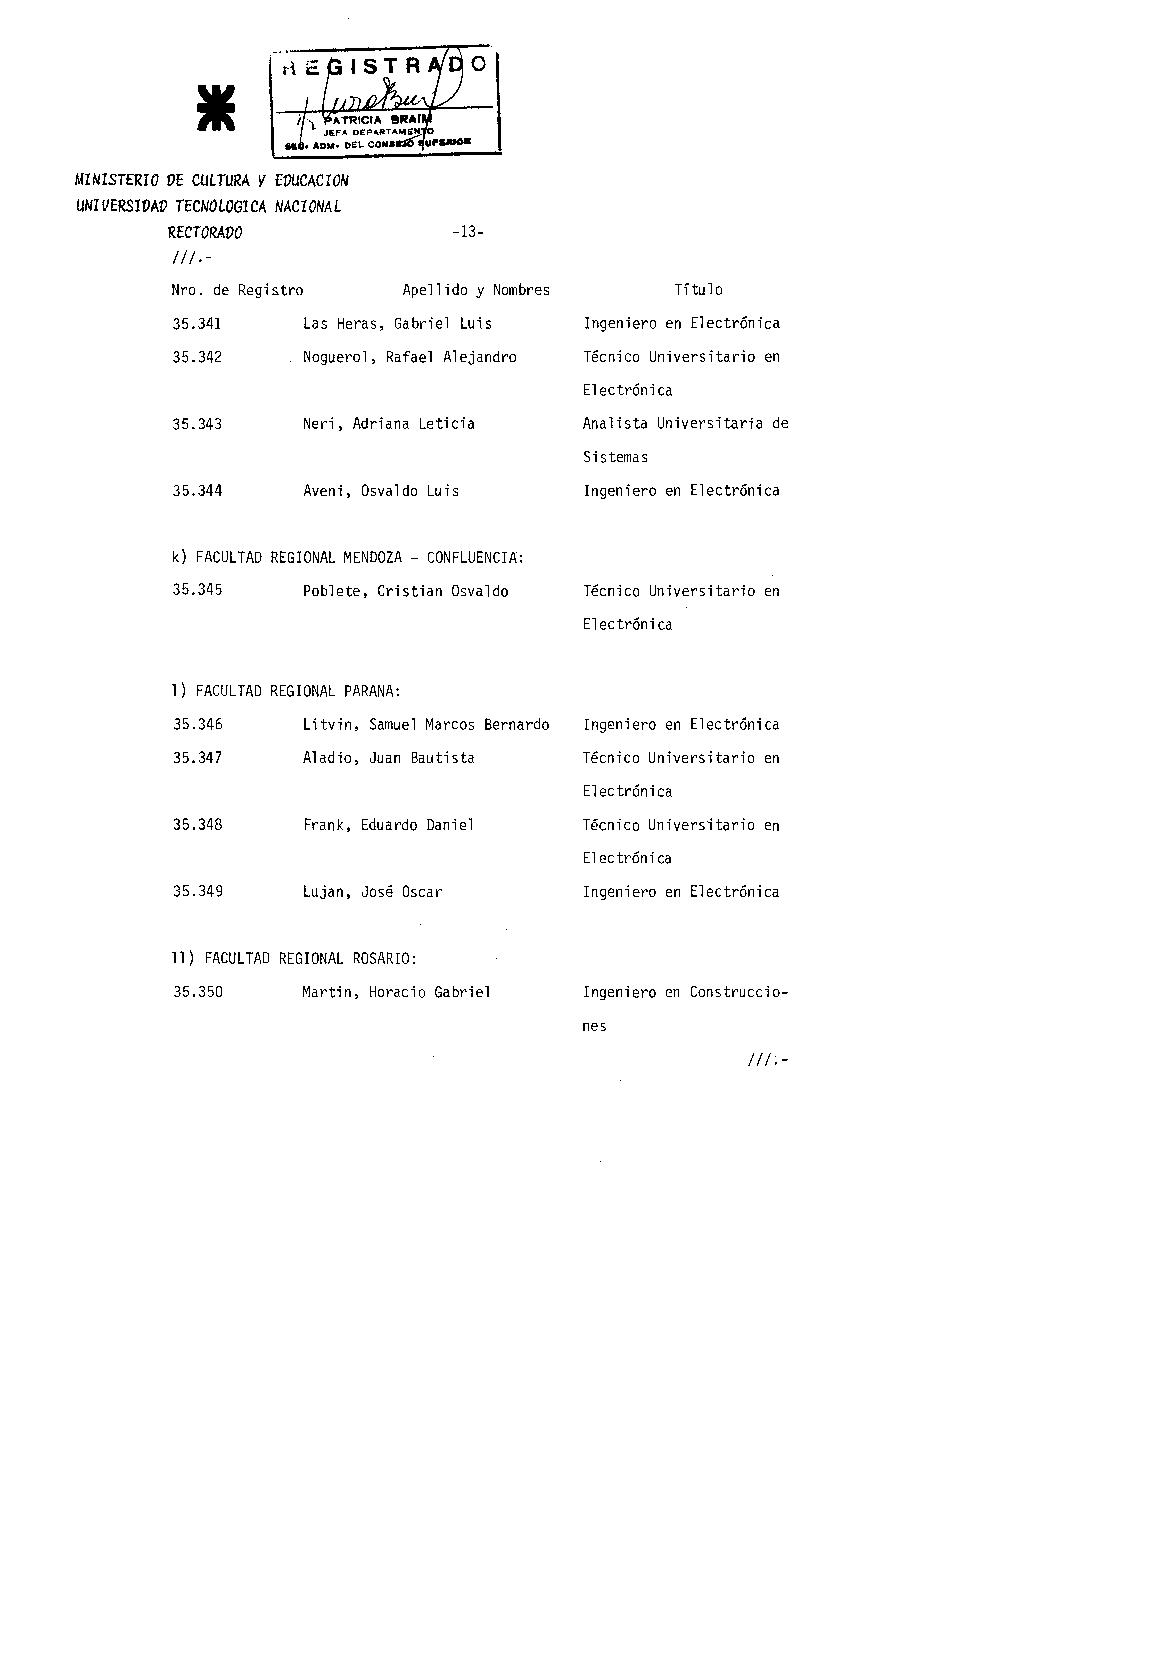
void draw(SkCanvas* canvas) {
    SkPaint paint;
    paint.setAntiAlias(true);
    auto paste = [&](const char* path, float x, float y, float w, float h) {
        auto image = SkImages::DeferredFromEncodedData(SkData::MakeFromFileName(path));
        canvas->drawImageRect(image, SkRect::MakeXYWH(x, y, w, h), SkSamplingOptions());
    };
    canvas->clear(SK_ColorWHITE);
    paste("pic1.png", 72, 16, 720, 1152);
}
